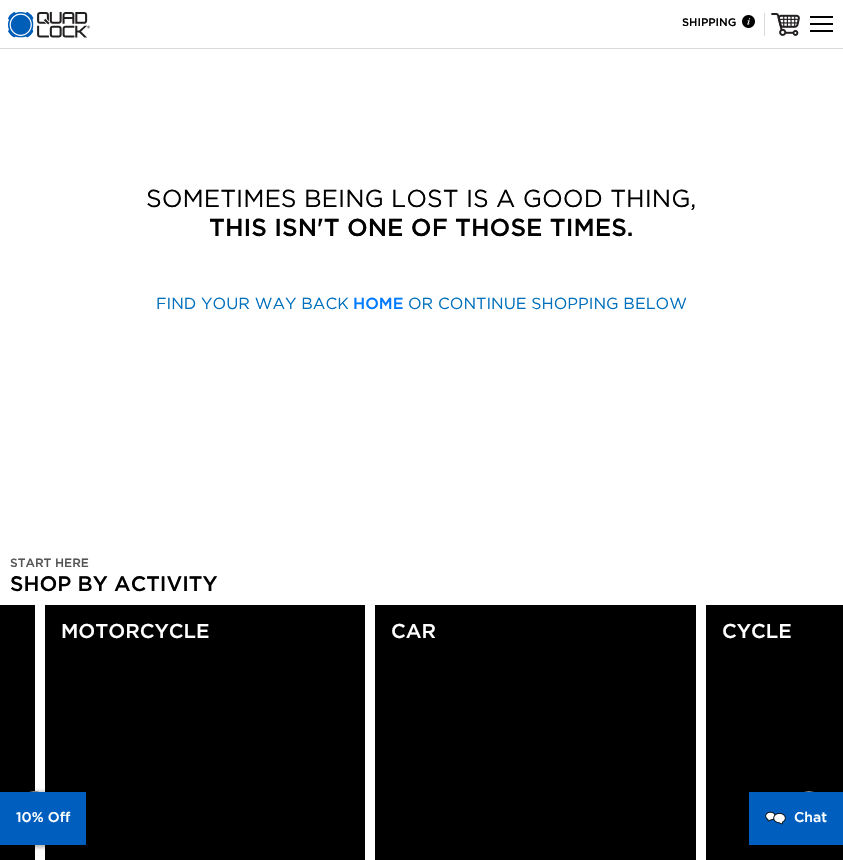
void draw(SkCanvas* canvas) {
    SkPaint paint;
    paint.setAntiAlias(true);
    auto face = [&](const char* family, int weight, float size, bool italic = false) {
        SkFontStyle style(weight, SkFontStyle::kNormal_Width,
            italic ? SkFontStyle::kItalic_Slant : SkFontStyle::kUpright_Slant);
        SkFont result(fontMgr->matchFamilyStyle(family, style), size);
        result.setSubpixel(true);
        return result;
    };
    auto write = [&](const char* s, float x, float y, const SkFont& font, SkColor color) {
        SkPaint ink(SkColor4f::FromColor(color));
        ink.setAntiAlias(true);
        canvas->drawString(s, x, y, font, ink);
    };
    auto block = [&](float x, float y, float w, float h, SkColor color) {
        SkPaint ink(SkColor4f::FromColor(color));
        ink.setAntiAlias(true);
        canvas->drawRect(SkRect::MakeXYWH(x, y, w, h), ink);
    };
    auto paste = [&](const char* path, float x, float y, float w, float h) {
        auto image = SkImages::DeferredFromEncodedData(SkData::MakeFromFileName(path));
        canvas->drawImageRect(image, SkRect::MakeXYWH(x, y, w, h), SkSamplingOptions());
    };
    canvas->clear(SK_ColorWHITE);
    paste("pic1.png", 8, 12, 82, 26);
    auto kFont1 = face("Gotham", 500, 11);
    write("SHIPPING", 682, 26, kFont1, SK_ColorBLACK);
    paste("pic2.png", 742, 15, 13, 13);
    block(764, 13, 1, 23, SkColorSetRGB(217, 217, 217));
    paste("pic3.png", 771, 13, 29, 23);
    paste("pic4.png", 810, 16, 23, 16);
    block(0, 48, 843, 1, SkColorSetRGB(217, 217, 217));
    auto kFont2 = face("Gotham", 400, 24.5f);
    write("SOMETIMES BEING LOST IS A GOOD THING,", 146, 207, kFont2, SK_ColorBLACK);
    auto kFont3 = face("Gotham", 500, 24.5f);
    write("THIS ISN'T ONE OF THOSE TIMES.", 209, 236, kFont3, SK_ColorBLACK);
    auto kFont4 = face("Gotham", 400, 16);
    write("FIND YOUR WAY BACK", 156, 309, kFont4, SkColorSetRGB(0, 111, 188));
    auto kFont5 = face("Gotham", 500, 16);
    write("HOME", 353, 309, kFont5, SkColorSetRGB(0, 123, 255));
    write("OR CONTINUE SHOPPING BELOW", 408, 309, kFont4, SkColorSetRGB(0, 111, 188));
    auto kFont6 = face("Gotham", 500, 12);
    write("START HERE", 10, 567, kFont6, SkColorSetRGB(85, 85, 85));
    auto kFont7 = face("Gotham", 500, 21);
    write("SHOP BY ACTIVITY", 10, 591, kFont7, SK_ColorBLACK);
    block(0, 605, 35, 255, SK_ColorBLACK);
    block(45, 605, 320, 255, SK_ColorBLACK);
    auto kFont8 = face("Gotham", 500, 20);
    write("MOTORCYCLE", 61, 638, kFont8, SK_ColorWHITE);
    block(375, 605, 321, 255, SK_ColorBLACK);
    write("CAR", 391, 638, kFont8, SK_ColorWHITE);
    block(706, 605, 137, 255, SK_ColorBLACK);
    write("CYCLE", 722, 638, kFont8, SK_ColorWHITE);
    paint.setColor(SkColorSetARGB(166, 0, 0, 0));
    canvas->drawCircle(34, 805, 14, paint);
    paint.setStyle(SkPaint::kStroke_Style);
    paint.setStrokeWidth(1);
    paint.setColor(SkColorSetARGB(166, 255, 255, 255));
    canvas->drawCircle(34, 805, 13.5f, paint);
    paint.setColor(SkColorSetRGB(166, 166, 166));
    canvas->drawCircle(809, 805, 13.5f, paint);
    paint.setStyle(SkPaint::kFill_Style);
    paint.setColor(SkColorSetARGB(64, 0, 0, 0));
    paint.setMaskFilter(SkMaskFilter::MakeBlur(kNormal_SkBlurStyle, 1.5f));
    canvas->drawRect(SkRect::MakeXYWH(-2, 791, 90, 57), paint);
    paint.setMaskFilter(nullptr);
    block(0, 792, 86, 53, SkColorSetRGB(0, 95, 190));
    auto kFont9 = face("Gotham", 500, 14);
    write("10% Off", 16, 822, kFont9, SK_ColorWHITE);
    paint.setMaskFilter(SkMaskFilter::MakeBlur(kNormal_SkBlurStyle, 1.5f));
    canvas->drawRect(SkRect::MakeXYWH(747, 791, 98, 57), paint);
    paint.setMaskFilter(nullptr);
    block(749, 792, 94, 53, SkColorSetRGB(0, 95, 190));
    paste("pic5.png", 765, 811, 21, 14);
    write("Chat", 794, 822, kFont9, SK_ColorWHITE);
}
